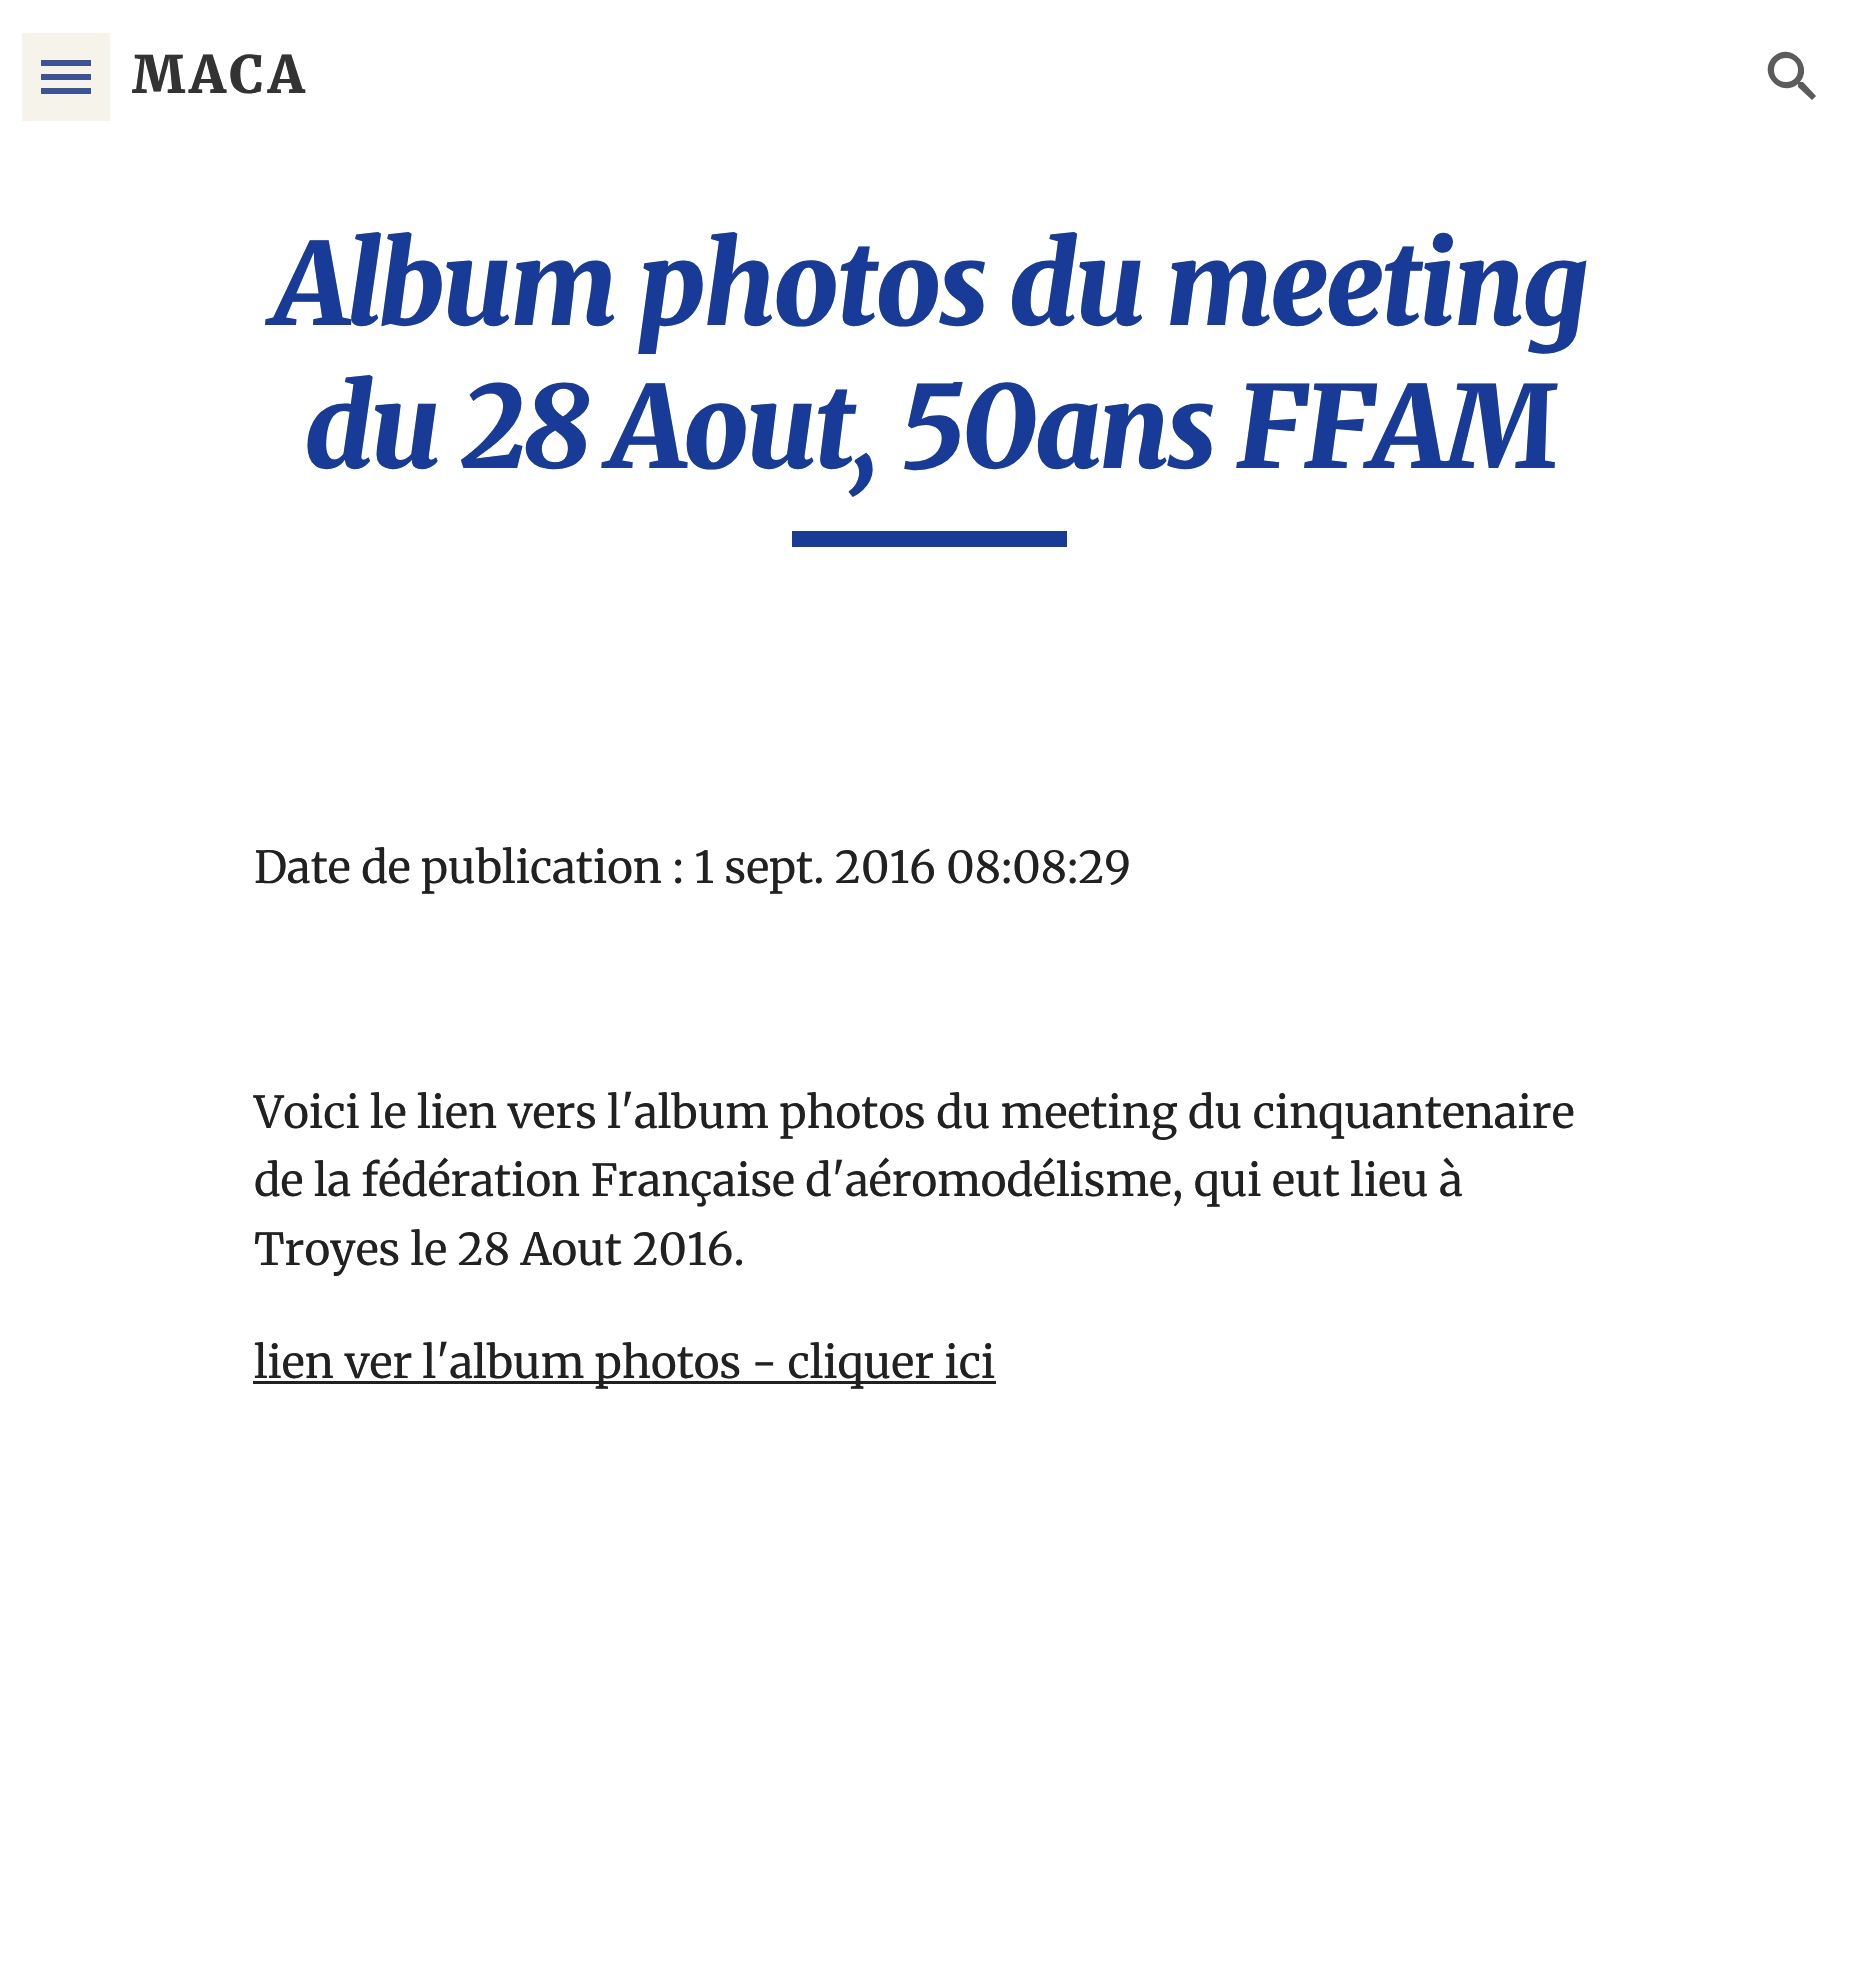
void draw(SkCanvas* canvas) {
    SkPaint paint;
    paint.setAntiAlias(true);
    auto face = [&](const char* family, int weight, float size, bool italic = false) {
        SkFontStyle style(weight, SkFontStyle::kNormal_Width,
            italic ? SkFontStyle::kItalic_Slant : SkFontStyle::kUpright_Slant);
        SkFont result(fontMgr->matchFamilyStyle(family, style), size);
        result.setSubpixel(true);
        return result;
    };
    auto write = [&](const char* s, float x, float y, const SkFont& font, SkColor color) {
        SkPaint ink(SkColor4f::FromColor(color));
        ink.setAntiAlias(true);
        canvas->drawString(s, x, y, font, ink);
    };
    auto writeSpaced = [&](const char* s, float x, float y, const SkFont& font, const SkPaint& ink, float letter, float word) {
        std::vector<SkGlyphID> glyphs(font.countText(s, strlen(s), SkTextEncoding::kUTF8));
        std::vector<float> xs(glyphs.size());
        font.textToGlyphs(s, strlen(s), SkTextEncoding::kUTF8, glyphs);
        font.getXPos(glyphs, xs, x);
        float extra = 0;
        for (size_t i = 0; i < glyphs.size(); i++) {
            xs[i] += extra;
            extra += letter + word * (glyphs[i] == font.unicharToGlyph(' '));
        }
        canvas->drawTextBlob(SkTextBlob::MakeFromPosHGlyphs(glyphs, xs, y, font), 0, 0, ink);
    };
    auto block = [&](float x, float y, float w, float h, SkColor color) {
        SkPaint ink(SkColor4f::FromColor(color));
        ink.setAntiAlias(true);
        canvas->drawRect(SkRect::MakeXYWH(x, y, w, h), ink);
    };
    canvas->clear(SK_ColorWHITE);
    block(22, 33, 88, 88, SkColorSetRGB(246, 243, 234));
    block(41, 60, 50, 6, SkColorSetRGB(60, 84, 151));
    block(41, 74, 50, 6, SkColorSetRGB(60, 84, 151));
    block(41, 88, 50, 6, SkColorSetRGB(60, 84, 151));
    auto kFont1 = face("Merriweather", 900, 51.5f);
    paint.setColor(SkColorSetRGB(51, 51, 51));
    writeSpaced("MACA", 132, 93, kFont1, paint, 4, 0);
    paint.setColor(SkColorSetRGB(92, 92, 92));
    canvas->drawPath(SkPathBuilder().moveTo(1803, 82).lineTo(1800, 82).cubicTo(1814, 65, 1790, 41, 1773, 57).cubicTo(1757, 74, 1781, 98, 1798, 84).lineTo(1798, 87).lineTo(1812, 100).lineTo(1816, 96).close().moveTo(1786, 82).cubicTo(1770, 82, 1770, 58, 1786, 58).cubicTo(1802, 58, 1802, 82, 1786, 82).close().detach(), paint);
    auto kFont2 = face("Merriweather", 900, 113.75f, true);
    paint.setColor(SkColorSetRGB(24, 59, 151));
    writeSpaced("Album photos du meeting", 274, 325, kFont2, paint, -2.5f, 0);
    writeSpaced("du 28 Aout, 50ans FFAM", 304, 468, kFont2, paint, -2.5f, 0);
    block(792, 531, 275, 16, SkColorSetRGB(24, 59, 151));
    auto kFont3 = face("Merriweather", 400, 44);
    write("Date de publication : 1 sept. 2016 08:08:29", 254, 883, kFont3, SkColorSetRGB(33, 33, 33));
    write("Voici le lien vers l'album photos du meeting du cinquantenaire", 254, 1128, kFont3, SkColorSetRGB(33, 33, 33));
    write("de la fédération Française d'aéromodélisme, qui eut lieu à", 254, 1196, kFont3, SkColorSetRGB(33, 33, 33));
    write("Troyes le 28 Aout 2016.", 254, 1265, kFont3, SkColorSetRGB(33, 33, 33));
    block(253, 1381, 743, 3, SkColorSetRGB(33, 33, 33));
    write("lien ver l'album photos - cliquer ici", 254, 1378, kFont3, SkColorSetRGB(33, 33, 33));
}
